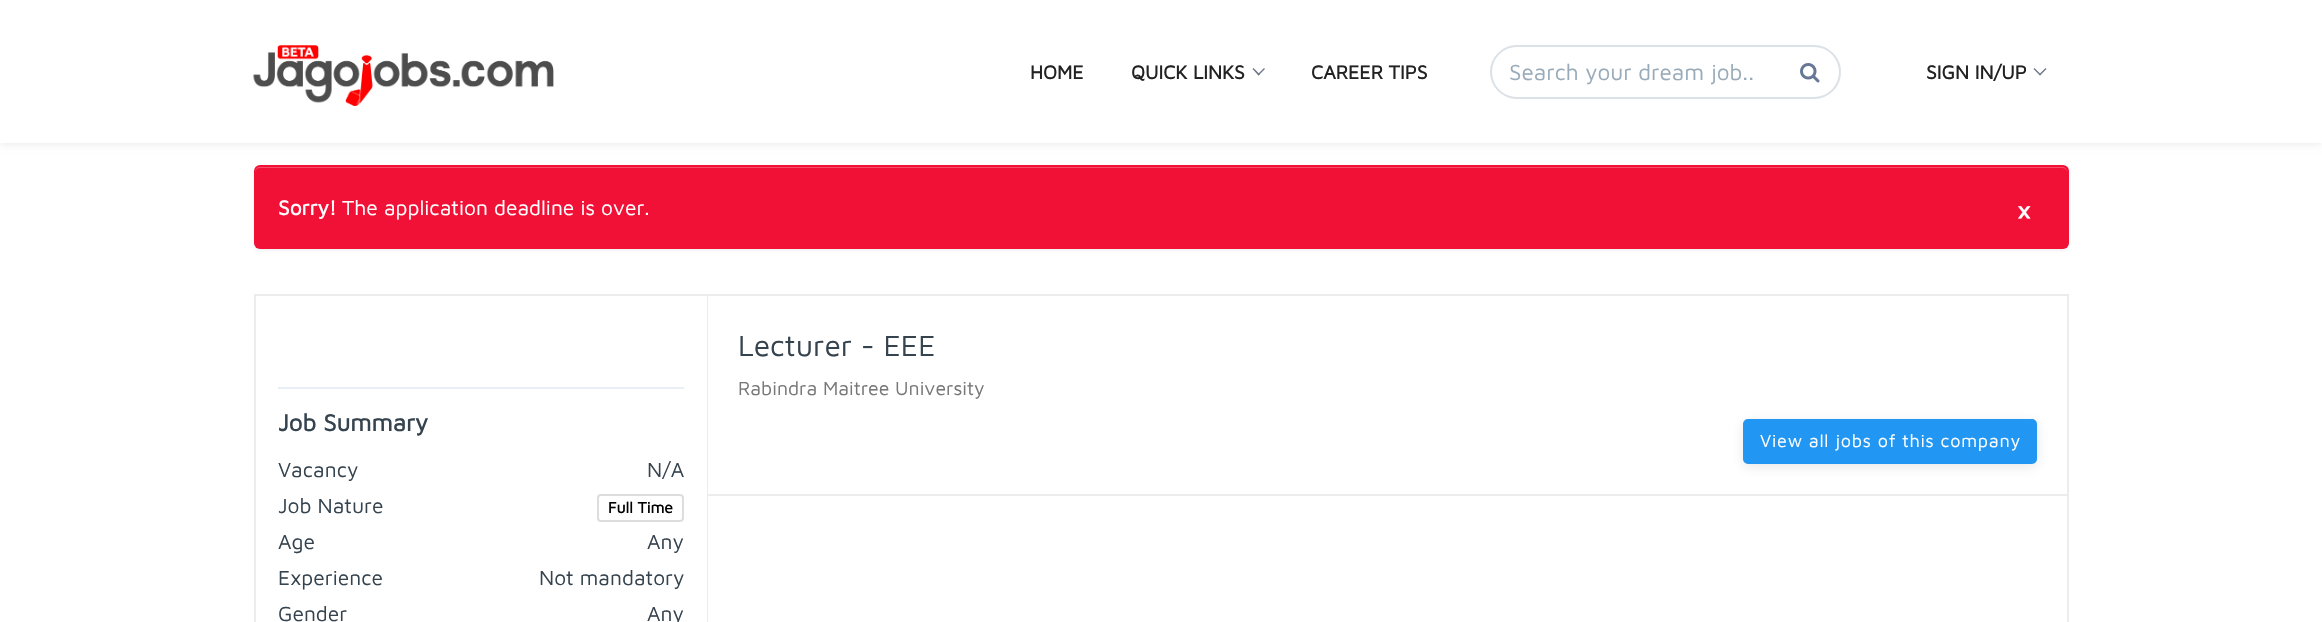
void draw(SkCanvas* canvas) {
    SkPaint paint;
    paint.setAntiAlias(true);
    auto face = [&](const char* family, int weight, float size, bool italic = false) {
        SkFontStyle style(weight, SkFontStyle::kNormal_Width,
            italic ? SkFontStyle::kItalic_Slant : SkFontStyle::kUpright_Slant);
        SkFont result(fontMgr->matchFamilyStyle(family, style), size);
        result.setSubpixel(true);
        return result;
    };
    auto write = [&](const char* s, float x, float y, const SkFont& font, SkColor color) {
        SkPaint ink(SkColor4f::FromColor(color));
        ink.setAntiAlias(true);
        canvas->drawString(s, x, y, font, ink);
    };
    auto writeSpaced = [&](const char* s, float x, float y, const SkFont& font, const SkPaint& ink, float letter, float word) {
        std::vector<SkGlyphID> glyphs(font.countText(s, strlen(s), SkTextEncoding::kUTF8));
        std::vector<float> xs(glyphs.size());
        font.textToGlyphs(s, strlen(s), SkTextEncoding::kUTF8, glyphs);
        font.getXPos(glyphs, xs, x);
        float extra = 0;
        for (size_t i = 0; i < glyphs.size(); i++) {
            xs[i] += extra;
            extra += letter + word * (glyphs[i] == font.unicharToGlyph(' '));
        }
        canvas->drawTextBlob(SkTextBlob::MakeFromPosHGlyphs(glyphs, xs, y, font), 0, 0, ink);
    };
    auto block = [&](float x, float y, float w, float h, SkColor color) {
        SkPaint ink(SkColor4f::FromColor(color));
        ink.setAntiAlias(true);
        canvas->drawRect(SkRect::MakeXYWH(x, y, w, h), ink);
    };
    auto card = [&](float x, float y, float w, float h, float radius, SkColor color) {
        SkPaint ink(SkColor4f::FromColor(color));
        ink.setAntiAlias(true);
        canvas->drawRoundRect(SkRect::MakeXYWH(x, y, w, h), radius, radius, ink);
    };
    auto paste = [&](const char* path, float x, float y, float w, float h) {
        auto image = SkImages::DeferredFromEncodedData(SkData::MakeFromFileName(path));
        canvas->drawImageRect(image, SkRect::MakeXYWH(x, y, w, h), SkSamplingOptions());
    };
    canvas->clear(SK_ColorWHITE);
    paint.setColor(SkColorSetARGB(26, 0, 0, 0));
    paint.setMaskFilter(SkMaskFilter::MakeBlur(kNormal_SkBlurStyle, 4));
    canvas->drawRect(SkRect::MakeXYWH(0, 0, 2322, 143), paint);
    paint.setMaskFilter(nullptr);
    block(0, 0, 2322, 143, SK_ColorWHITE);
    paste("pic1.png", 253, 45, 301, 61);
    auto kFont1 = face("Maven Pro", 700, 19.5f);
    write("HOME", 1030, 79, kFont1, SkColorSetRGB(34, 34, 34));
    write("QUICK LINKS", 1131, 79, kFont1, SkColorSetRGB(34, 34, 34));
    paint.setColor(SkColorSetRGB(112, 121, 139));
    canvas->drawPath(SkPathBuilder().moveTo(1264, 68).lineTo(1265, 69).lineTo(1258.5f, 75.5f).lineTo(1257.5f, 74.5f).close().detach(), paint);
    canvas->drawPath(SkPathBuilder().moveTo(1253.5f, 68).lineTo(1260, 74.5f).lineTo(1258.5f, 75.5f).lineTo(1252.5f, 69).close().detach(), paint);
    write("CAREER TIPS", 1311, 79, kFont1, SkColorSetRGB(34, 34, 34));
    paint.setStyle(SkPaint::kStroke_Style);
    paint.setStrokeWidth(2);
    paint.setColor(SkColorSetRGB(218, 225, 231));
    canvas->drawRoundRect(SkRect::MakeXYWH(1491, 46, 349, 52), 26, 26, paint);
    auto kFont2 = face("Maven Pro", 400, 22.5f);
    write("Search your dream job..", 1509, 80, kFont2, SkColorSetRGB(153, 171, 185));
    paste("pic2.png", 1800, 63, 20, 20);
    write("SIGN IN/UP", 1926, 79, kFont1, SkColorSetRGB(34, 34, 34));
    paint.setStyle(SkPaint::kFill_Style);
    paint.setColor(SkColorSetRGB(112, 121, 139));
    canvas->drawPath(SkPathBuilder().moveTo(2045.5f, 68).lineTo(2046.5f, 69).lineTo(2040, 75.5f).lineTo(2039, 74.5f).close().detach(), paint);
    canvas->drawPath(SkPathBuilder().moveTo(2034.5f, 68).lineTo(2041, 74.5f).lineTo(2040, 75.5f).lineTo(2033.5f, 69).close().detach(), paint);
    paint.setColor(SkColorSetARGB(13, 0, 0, 0));
    paint.setMaskFilter(SkMaskFilter::MakeBlur(kNormal_SkBlurStyle, 1.5f));
    canvas->drawRoundRect(SkRect::MakeXYWH(254, 167, 1815, 84), 6, 6, paint);
    paint.setMaskFilter(nullptr);
    card(254, 165, 1815, 84, 6, SkColorSetRGB(242, 17, 54));
    paint.setColor(SkColorSetRGB(245, 77, 104));
    canvas->drawPath(SkPathBuilder().moveTo(260, 168).lineTo(2062, 168).cubicTo(2065, 168, 2067, 170, 2067, 172).cubicTo(2067, 169, 2065, 167, 2062, 167).lineTo(260, 167).cubicTo(257, 167, 255, 169, 255, 172).cubicTo(255, 170, 257, 168, 260, 168).close().detach(), paint);
    auto kFont3 = face("Maven Pro", 700, 21);
    write("Sorry!", 278, 215, kFont3, SK_ColorWHITE);
    auto kFont4 = face("Maven Pro", 400, 21);
    write("The application deadline is over.", 342, 215, kFont4, SK_ColorWHITE);
    auto kFont5 = face("Maven Pro", 700, 32);
    write("×", 2016, 221, kFont5, SK_ColorWHITE);
    paint.setStyle(SkPaint::kStroke_Style);
    paint.setColor(SkColorSetRGB(237, 236, 236));
    canvas->drawRect(SkRect::MakeXYWH(255, 295, 1813, 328), paint);
    block(708, 494, 1359, 2, SkColorSetRGB(237, 236, 236));
    auto kFont6 = face("Maven Pro", 400, 30);
    write("Lecturer - EEE", 738, 356, kFont6, SkColorSetRGB(53, 67, 78));
    auto kFont7 = face("Maven Pro", 400, 19.5f);
    write("Rabindra Maitree University", 738, 395, kFont7, SkColorSetRGB(119, 119, 119));
    paint.setStyle(SkPaint::kFill_Style);
    paint.setColor(SkColorSetARGB(38, 102, 103, 107));
    paint.setMaskFilter(SkMaskFilter::MakeBlur(kNormal_SkBlurStyle, 6));
    canvas->drawRoundRect(SkRect::MakeXYWH(1743, 422, 294, 45), 5, 5, paint);
    paint.setMaskFilter(nullptr);
    paint.setColor(SkColorSetRGB(33, 150, 243));
    canvas->drawRoundRect(SkRect::MakeXYWH(1744, 420, 292, 43), 4, 4, paint);
    paint.setStyle(SkPaint::kStroke_Style);
    canvas->drawRoundRect(SkRect::MakeXYWH(1744, 420, 292, 43), 4, 4, paint);
    auto kFont8 = face("Maven Pro", 400, 18);
    paint.setStyle(SkPaint::kFill_Style);
    paint.setColor(SK_ColorWHITE);
    writeSpaced("View all jobs of this company", 1760, 447, kFont8, paint, 0.75f, 0);
    block(707, 296, 1, 326, SkColorSetRGB(237, 236, 236));
    block(278, 387, 406, 2, SkColorSetRGB(234, 239, 245));
    auto kFont9 = face("Maven Pro", 700, 24);
    write("Job Summary", 278, 431, kFont9, SkColorSetRGB(53, 67, 78));
    write("Vacancy", 278, 477, kFont4, SkColorSetRGB(53, 67, 78));
    write("N/A", 647, 477, kFont4, SkColorSetRGB(53, 67, 78));
    write("Job Nature", 278, 513, kFont4, SkColorSetRGB(53, 67, 78));
    paint.setStyle(SkPaint::kStroke_Style);
    paint.setColor(SkColorSetRGB(221, 221, 221));
    canvas->drawRoundRect(SkRect::MakeXYWH(598, 495, 85, 26), 3, 3, paint);
    auto kFont10 = face("Maven Pro", 700, 15.75f);
    write("Full Time", 608, 513, kFont10, SK_ColorBLACK);
    write("Age", 278, 549, kFont4, SkColorSetRGB(53, 67, 78));
    write("Any", 647, 549, kFont4, SkColorSetRGB(53, 67, 78));
    write("Experience", 278, 585, kFont4, SkColorSetRGB(53, 67, 78));
    write("Not mandatory", 539, 585, kFont4, SkColorSetRGB(53, 67, 78));
    write("Gender", 278, 621, kFont4, SkColorSetRGB(53, 67, 78));
    write("Any", 647, 621, kFont4, SkColorSetRGB(53, 67, 78));
}
